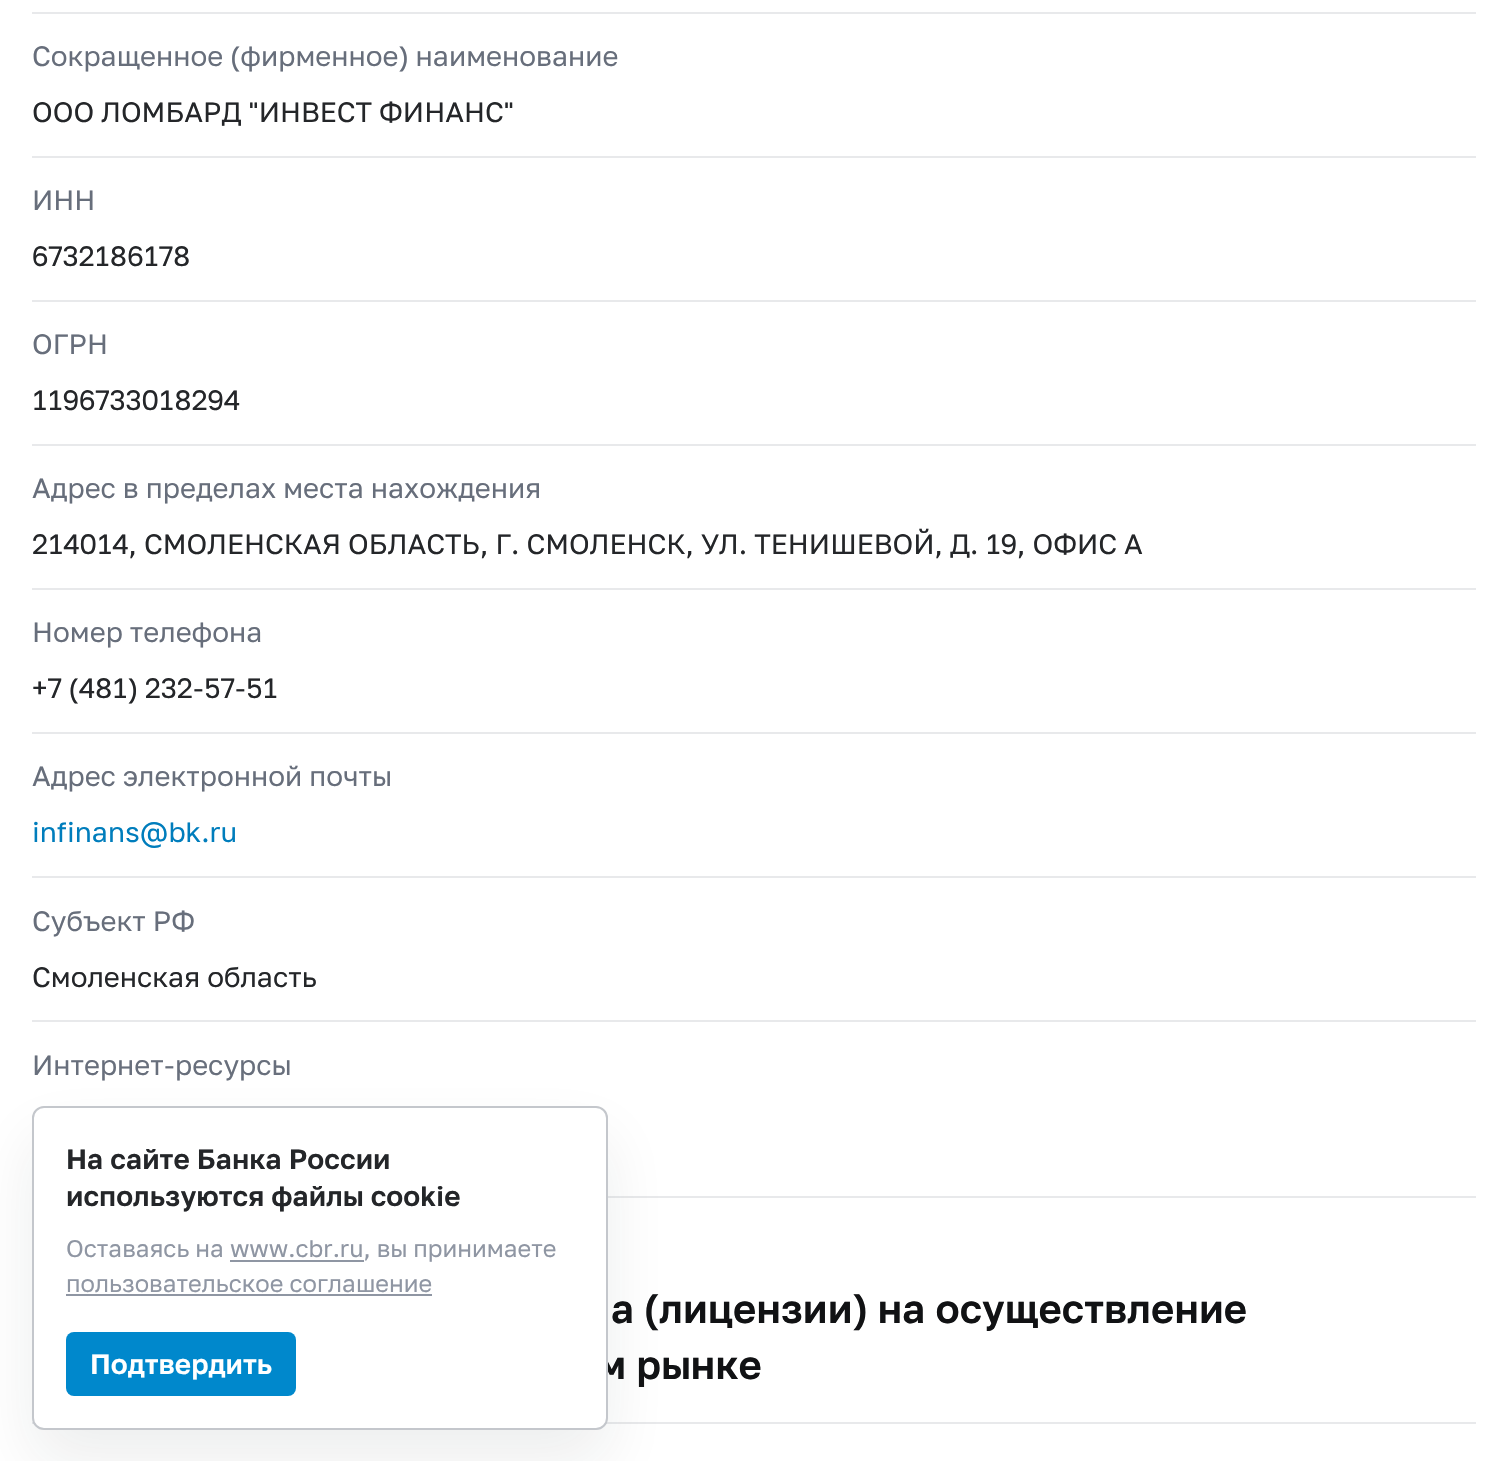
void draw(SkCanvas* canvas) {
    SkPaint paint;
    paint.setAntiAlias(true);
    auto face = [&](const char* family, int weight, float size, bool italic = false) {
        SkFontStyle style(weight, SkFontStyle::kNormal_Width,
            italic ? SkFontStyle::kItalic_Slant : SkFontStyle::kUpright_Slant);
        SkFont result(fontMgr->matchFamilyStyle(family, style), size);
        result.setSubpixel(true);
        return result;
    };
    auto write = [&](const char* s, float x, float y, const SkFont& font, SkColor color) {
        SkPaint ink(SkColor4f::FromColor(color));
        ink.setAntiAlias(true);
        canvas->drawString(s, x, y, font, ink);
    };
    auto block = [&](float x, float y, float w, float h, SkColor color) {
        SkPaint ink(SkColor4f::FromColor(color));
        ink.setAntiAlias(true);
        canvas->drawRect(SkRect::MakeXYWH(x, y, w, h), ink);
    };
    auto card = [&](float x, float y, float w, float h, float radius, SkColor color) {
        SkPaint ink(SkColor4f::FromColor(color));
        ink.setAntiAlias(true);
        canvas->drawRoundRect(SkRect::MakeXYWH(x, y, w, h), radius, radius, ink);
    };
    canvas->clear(SK_ColorWHITE);
    block(608, 1196, 868, 2, SkColorSetRGB(232, 233, 235));
    block(32, 12, 1444, 2, SkColorSetRGB(232, 233, 235));
    auto kFont1 = face("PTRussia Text", 400, 28);
    write("Сокращенное (фирменное) наименование", 32, 66, kFont1, SkColorSetRGB(103, 110, 123));
    write("ООО ЛОМБАРД \"ИНВЕСТ ФИНАНС\"", 32, 122, kFont1, SkColorSetRGB(36, 38, 41));
    block(32, 156, 1444, 2, SkColorSetRGB(232, 233, 235));
    write("ИНН", 32, 210, kFont1, SkColorSetRGB(103, 110, 123));
    write("6732186178", 32, 266, kFont1, SkColorSetRGB(36, 38, 41));
    block(32, 300, 1444, 2, SkColorSetRGB(232, 233, 235));
    write("ОГРН", 32, 354, kFont1, SkColorSetRGB(103, 110, 123));
    write("1196733018294", 32, 410, kFont1, SkColorSetRGB(36, 38, 41));
    block(32, 444, 1444, 2, SkColorSetRGB(232, 233, 235));
    write("Адрес в пределах места нахождения", 32, 498, kFont1, SkColorSetRGB(103, 110, 123));
    write("214014, СМОЛЕНСКАЯ ОБЛАСТЬ, Г. СМОЛЕНСК, УЛ. ТЕНИШЕВОЙ, Д. 19, ОФИС А", 32, 554, kFont1, SkColorSetRGB(36, 38, 41));
    block(32, 588, 1444, 2, SkColorSetRGB(232, 233, 235));
    write("Номер телефона", 32, 642, kFont1, SkColorSetRGB(103, 110, 123));
    write("+7 (481) 232-57-51", 32, 698, kFont1, SkColorSetRGB(36, 38, 41));
    block(32, 732, 1444, 2, SkColorSetRGB(232, 233, 235));
    write("Адрес электронной почты", 32, 786, kFont1, SkColorSetRGB(103, 110, 123));
    write("infinans@bk.ru", 32, 842, kFont1, SkColorSetRGB(0, 125, 188));
    block(32, 876, 1444, 2, SkColorSetRGB(232, 233, 235));
    write("Субъект РФ", 32, 931, kFont1, SkColorSetRGB(103, 110, 123));
    write("Смоленская область", 32, 987, kFont1, SkColorSetRGB(36, 38, 41));
    block(32, 1020, 1444, 2, SkColorSetRGB(232, 233, 235));
    write("Интернет-ресурсы", 32, 1075, kFont1, SkColorSetRGB(103, 110, 123));
    auto kFont2 = face("PTRussia Text", 500, 40);
    write("а (лицензии) на осуществление", 611, 1323, kFont2, SkColorSetRGB(17, 18, 20));
    write("м рынке", 597, 1379, kFont2, SkColorSetRGB(17, 18, 20));
    block(32, 1422, 1444, 2, SkColorSetRGB(232, 233, 235));
    paint.setColor(SkColorSetARGB(20, 31, 34, 41));
    paint.setMaskFilter(SkMaskFilter::MakeBlur(kNormal_SkBlurStyle, 32));
    canvas->drawRoundRect(SkRect::MakeXYWH(32, 1138, 576, 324), 12, 12, paint);
    paint.setMaskFilter(nullptr);
    paint.setColor(SK_ColorWHITE);
    canvas->drawRoundRect(SkRect::MakeXYWH(33, 1107, 574, 322), 11, 11, paint);
    paint.setStyle(SkPaint::kStroke_Style);
    paint.setStrokeWidth(2);
    paint.setColor(SkColorSetRGB(196, 199, 204));
    canvas->drawRoundRect(SkRect::MakeXYWH(33, 1107, 574, 322), 11, 11, paint);
    auto kFont3 = face("PTRussia Text", 500, 28);
    write("На сайте Банка России", 66, 1169, kFont3, SkColorSetRGB(36, 38, 41));
    write("используются файлы cookie", 66, 1206, kFont3, SkColorSetRGB(36, 38, 41));
    auto kFont4 = face("PTRussia Text", 400, 24);
    write("Оставаясь на www.cbr.ru, вы принимаете", 66, 1257, kFont4, SkColorSetRGB(143, 150, 163));
    block(230, 1260, 134, 2, SkColorSetRGB(143, 150, 163));
    write("пользовательское соглашение", 66, 1292, kFont4, SkColorSetRGB(143, 150, 163));
    block(66, 1294, 366, 2, SkColorSetRGB(143, 150, 163));
    card(66, 1332, 230, 64, 8, SkColorSetRGB(0, 136, 204));
    write("Подтвердить", 90, 1374, kFont3, SK_ColorWHITE);
}
